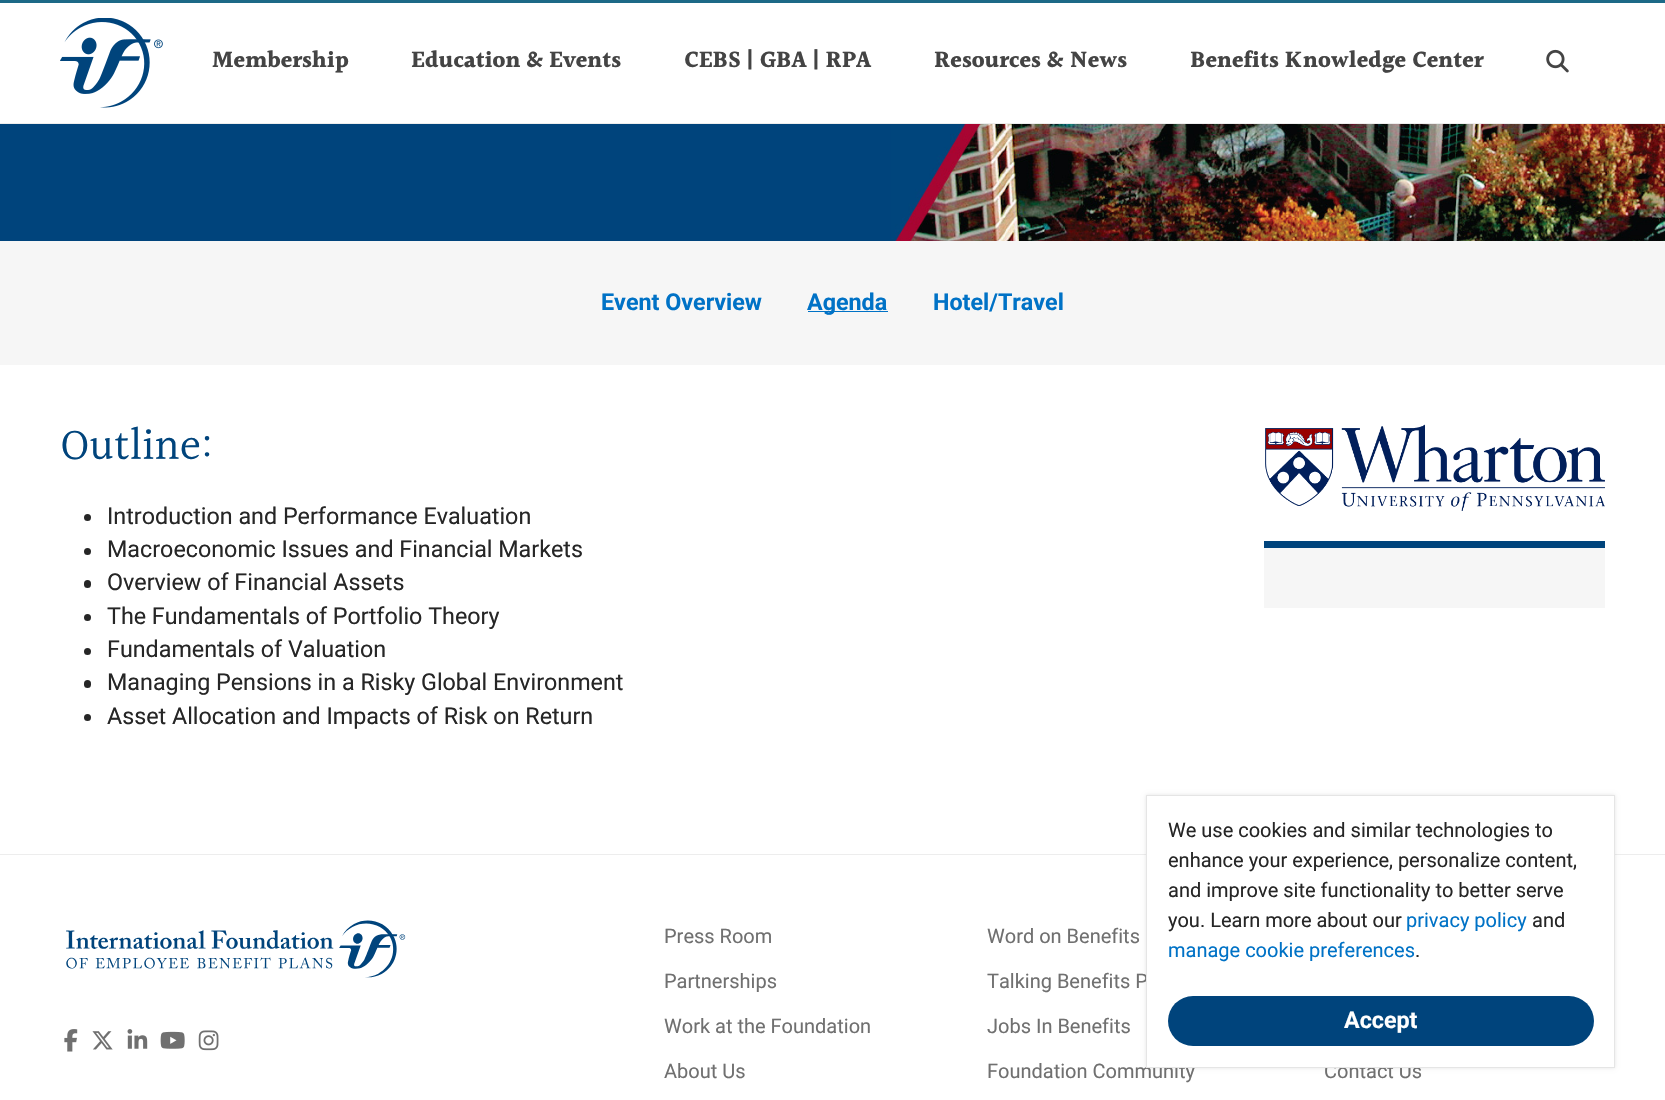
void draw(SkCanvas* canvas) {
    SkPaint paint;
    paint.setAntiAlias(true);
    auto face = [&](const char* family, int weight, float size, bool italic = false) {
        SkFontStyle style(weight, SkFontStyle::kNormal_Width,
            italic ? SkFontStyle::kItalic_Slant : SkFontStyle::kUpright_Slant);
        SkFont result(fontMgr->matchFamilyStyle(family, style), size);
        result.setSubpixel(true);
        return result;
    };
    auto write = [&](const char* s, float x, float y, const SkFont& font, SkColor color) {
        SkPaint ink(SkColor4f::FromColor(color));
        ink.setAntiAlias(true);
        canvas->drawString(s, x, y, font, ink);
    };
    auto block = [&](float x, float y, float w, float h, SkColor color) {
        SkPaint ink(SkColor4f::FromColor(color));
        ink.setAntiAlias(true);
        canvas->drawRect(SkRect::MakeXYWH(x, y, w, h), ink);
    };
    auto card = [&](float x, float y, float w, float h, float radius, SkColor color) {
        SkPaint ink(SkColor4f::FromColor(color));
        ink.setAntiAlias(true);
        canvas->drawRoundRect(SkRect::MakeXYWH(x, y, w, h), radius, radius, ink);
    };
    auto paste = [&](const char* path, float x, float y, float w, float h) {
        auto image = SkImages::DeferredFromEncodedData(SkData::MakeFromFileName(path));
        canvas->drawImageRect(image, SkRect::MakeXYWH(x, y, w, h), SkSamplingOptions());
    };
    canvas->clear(SK_ColorWHITE);
    block(0, 123, 1665, 1, SkColorSetRGB(237, 237, 237));
    block(0, 0, 1665, 3, SkColorSetRGB(28, 105, 135));
    paste("pic1.png", 60, 18, 103, 90);
    auto kFont1 = face("Halant", 700, 23.3f);
    write("Membership", 212, 68, kFont1, SkColorSetRGB(68, 68, 68));
    write("Education & Events", 411, 68, kFont1, SkColorSetRGB(68, 68, 68));
    write("CEBS | GBA | RPA", 684, 68, kFont1, SkColorSetRGB(68, 68, 68));
    write("Resources & News", 934, 68, kFont1, SkColorSetRGB(68, 68, 68));
    write("Benefits Knowledge Center", 1190, 68, kFont1, SkColorSetRGB(68, 68, 68));
    paste("pic2.png", 1546, 49, 23, 24);
    block(0, 124, 891, 117, SkColorSetRGB(0, 68, 124));
    paste("pic3.png", 891, 124, 774, 117);
    block(0, 241, 1665, 124, SkColorSetRGB(246, 246, 246));
    auto kFont2 = face("Roboto", 700, 23.3f);
    write("Event Overview", 601, 310, kFont2, SkColorSetRGB(0, 114, 198));
    block(808, 311, 80, 1, SkColorSetRGB(0, 114, 198));
    write("Agenda", 807, 310, kFont2, SkColorSetRGB(0, 114, 198));
    write("Hotel/Travel", 933, 310, kFont2, SkColorSetRGB(0, 114, 198));
    auto kFont3 = face("Halant", 400, 45);
    write("Outline:", 60, 461, kFont3, SkColorSetRGB(0, 68, 124));
    paint.setColor(SkColorSetRGB(38, 38, 38));
    canvas->drawCircle(87.5f, 517.5f, 3.5f, paint);
    auto kFont4 = face("Roboto", 400, 23.3f);
    write("Introduction and Performance Evaluation", 107, 524, kFont4, SkColorSetRGB(38, 38, 38));
    canvas->drawCircle(87.5f, 551.5f, 3.5f, paint);
    write("Macroeconomic Issues and Financial Markets", 107, 557, kFont4, SkColorSetRGB(38, 38, 38));
    card(84, 580, 7, 8, 3.5f, SkColorSetRGB(38, 38, 38));
    write("Overview of Financial Assets", 107, 590, kFont4, SkColorSetRGB(38, 38, 38));
    canvas->drawCircle(87.5f, 617.5f, 3.5f, paint);
    write("The Fundamentals of Portfolio Theory", 107, 624, kFont4, SkColorSetRGB(38, 38, 38));
    canvas->drawCircle(87.5f, 651.5f, 3.5f, paint);
    write("Fundamentals of Valuation", 107, 657, kFont4, SkColorSetRGB(38, 38, 38));
    card(84, 680, 7, 8, 3.5f, SkColorSetRGB(38, 38, 38));
    write("Managing Pensions in a Risky Global Environment", 107, 690, kFont4, SkColorSetRGB(38, 38, 38));
    canvas->drawCircle(87.5f, 717.5f, 3.5f, paint);
    write("Asset Allocation and Impacts of Risk on Return", 107, 724, kFont4, SkColorSetRGB(38, 38, 38));
    paste("pic4.png", 1265, 424, 340, 87);
    block(1264, 548, 341, 60, SkColorSetRGB(246, 246, 246));
    block(1264, 541, 341, 7, SkColorSetRGB(0, 68, 124));
    block(0, 854, 1665, 1, SkColorSetRGB(237, 237, 237));
    paint.setColor(SkColorSetARGB(26, 0, 0, 0));
    paint.setMaskFilter(SkMaskFilter::MakeBlur(kNormal_SkBlurStyle, 2));
    canvas->drawRect(SkRect::MakeXYWH(1146, 795, 469, 273), paint);
    paint.setMaskFilter(nullptr);
    auto kFont5 = face("Roboto", 400, 20);
    write("Talking Benefits P", 987, 988, kFont5, SkColorSetRGB(112, 112, 112));
    write("Foundation Community", 987, 1078, kFont5, SkColorSetRGB(112, 112, 112));
    write("Contact Us", 1324, 1078, kFont5, SkColorSetRGB(112, 112, 112));
    paint.setColor(SK_ColorWHITE);
    canvas->drawRect(SkRect::MakeXYWH(1146.5f, 795.5f, 468, 272), paint);
    paint.setStyle(SkPaint::kStroke_Style);
    paint.setStrokeWidth(1);
    paint.setColor(SkColorSetRGB(229, 229, 229));
    canvas->drawRect(SkRect::MakeXYWH(1146.5f, 795.5f, 468, 272), paint);
    write("We use cookies and similar technologies to", 1168, 837, kFont5, SkColorSetRGB(38, 38, 38));
    write("enhance your experience, personalize content,", 1168, 867, kFont5, SkColorSetRGB(38, 38, 38));
    write("and improve site functionality to better serve", 1168, 897, kFont5, SkColorSetRGB(38, 38, 38));
    write("you. Learn more about our", 1168, 927, kFont5, SkColorSetRGB(38, 38, 38));
    write("privacy policy", 1406, 927, kFont5, SkColorSetRGB(0, 114, 198));
    write("and", 1532, 927, kFont5, SkColorSetRGB(38, 38, 38));
    write("manage cookie preferences", 1168, 957, kFont5, SkColorSetRGB(0, 114, 198));
    write(".", 1415, 957, kFont5, SkColorSetRGB(38, 38, 38));
    card(1168, 996, 426, 50, 25, SkColorSetRGB(0, 68, 124));
    write("Accept", 1344, 1028, kFont2, SK_ColorWHITE);
    paste("pic5.png", 66, 920, 340, 58);
    paste("pic6.png", 64, 1029, 14, 23);
    paste("pic7.png", 92, 1031, 21, 19);
    paste("pic8.png", 127, 1029, 21, 20);
    paste("pic9.png", 160, 1031, 25, 18);
    paste("pic10.png", 198, 1030, 21, 21);
    write("Press Room", 664, 943, kFont5, SkColorSetRGB(112, 112, 112));
    write("Partnerships", 664, 988, kFont5, SkColorSetRGB(112, 112, 112));
    write("Work at the Foundation", 664, 1033, kFont5, SkColorSetRGB(112, 112, 112));
    write("About Us", 664, 1078, kFont5, SkColorSetRGB(112, 112, 112));
    write("Word on Benefits", 987, 943, kFont5, SkColorSetRGB(112, 112, 112));
    write("Jobs In Benefits", 987, 1033, kFont5, SkColorSetRGB(112, 112, 112));
}
